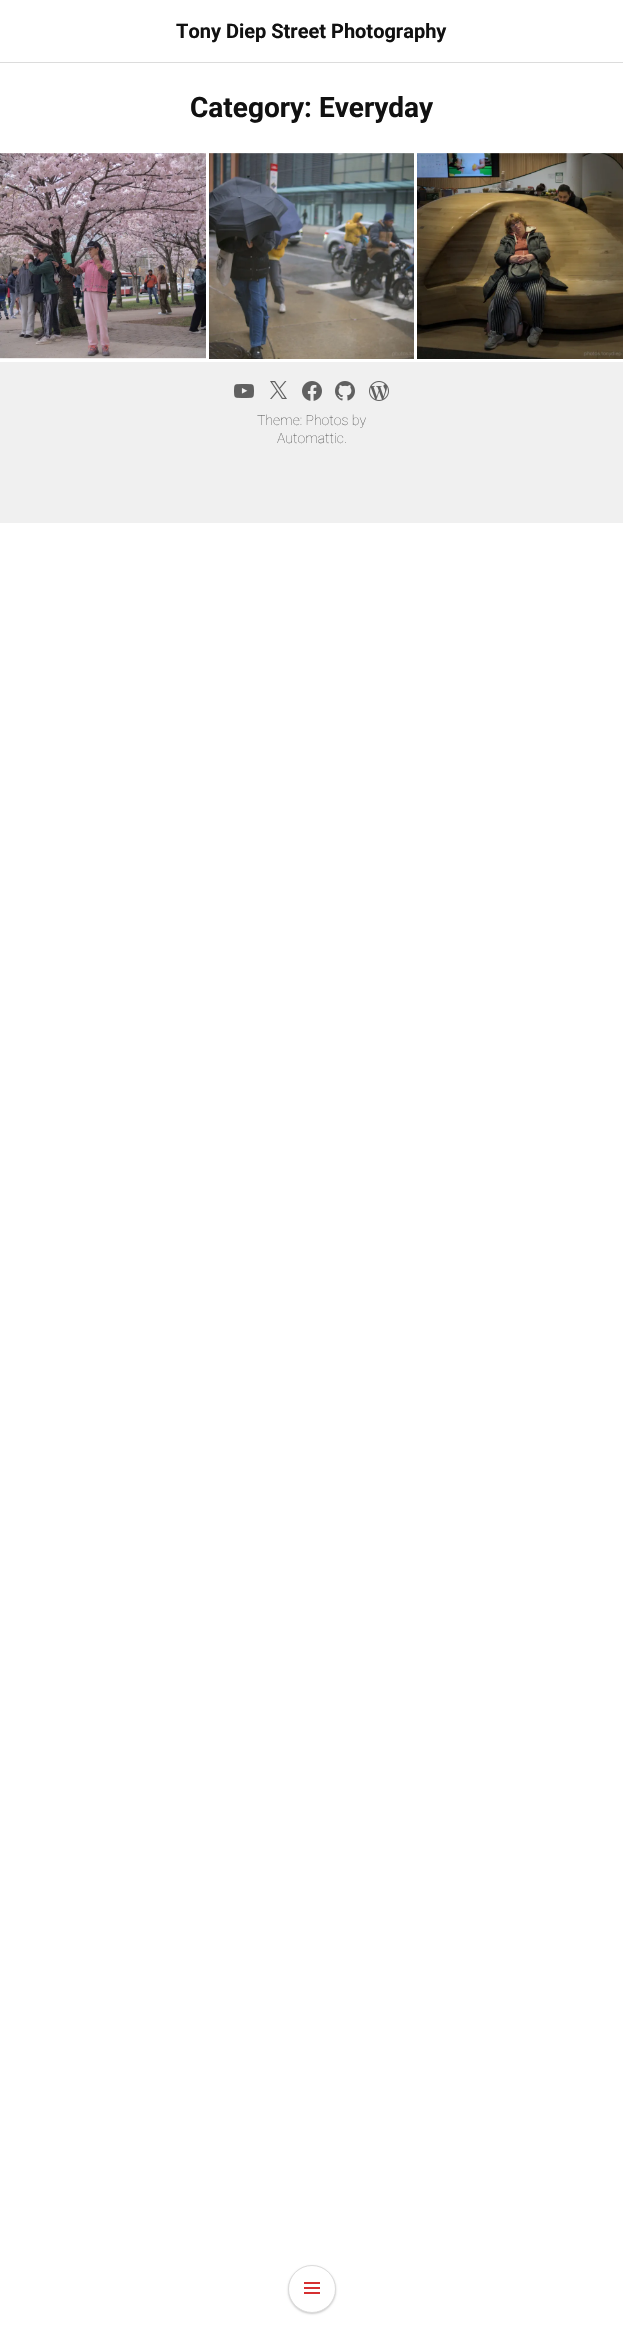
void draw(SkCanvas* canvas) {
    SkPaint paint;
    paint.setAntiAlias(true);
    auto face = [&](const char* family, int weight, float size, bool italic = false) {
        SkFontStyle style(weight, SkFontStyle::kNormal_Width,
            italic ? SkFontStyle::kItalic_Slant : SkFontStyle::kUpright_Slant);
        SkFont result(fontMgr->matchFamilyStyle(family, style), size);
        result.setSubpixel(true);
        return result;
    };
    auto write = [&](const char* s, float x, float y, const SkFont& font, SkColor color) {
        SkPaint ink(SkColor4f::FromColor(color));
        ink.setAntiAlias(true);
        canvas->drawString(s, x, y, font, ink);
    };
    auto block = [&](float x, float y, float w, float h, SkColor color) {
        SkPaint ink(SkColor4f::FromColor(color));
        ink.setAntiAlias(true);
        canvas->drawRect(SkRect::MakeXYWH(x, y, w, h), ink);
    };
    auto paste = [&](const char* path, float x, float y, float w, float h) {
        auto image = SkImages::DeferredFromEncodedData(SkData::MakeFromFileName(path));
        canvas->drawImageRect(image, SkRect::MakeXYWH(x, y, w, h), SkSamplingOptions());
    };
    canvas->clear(SK_ColorWHITE);
    block(0, 62, 623, 1, SkColorSetRGB(220, 220, 220));
    auto kFont1 = face("Roboto", 700, 20);
    write("Tony Diep Street Photography", 176, 38, kFont1, SkColorSetRGB(17, 17, 17));
    paint.setColor(SkColorSetARGB(51, 0, 0, 0));
    paint.setMaskFilter(SkMaskFilter::MakeBlur(kNormal_SkBlurStyle, 1));
    canvas->drawRoundRect(SkRect::MakeXYWH(288, 2266, 48, 48), 24, 24, paint);
    paint.setMaskFilter(nullptr);
    paint.setColor(SK_ColorWHITE);
    canvas->drawCircle(312, 2289, 23.5f, paint);
    paint.setStyle(SkPaint::kStroke_Style);
    paint.setStrokeWidth(1);
    paint.setColor(SkColorSetRGB(220, 220, 220));
    canvas->drawCircle(312, 2289, 23.5f, paint);
    paste("pic1.png", 304, 2282, 16, 12);
    auto kFont2 = face("Roboto", 700, 28);
    write("Category: Everyday", 190, 117, kFont2, SkColorSetRGB(17, 17, 17));
    paste("pic2.png", 0, 153, 206, 206);
    paste("pic3.png", 209, 153, 205, 206);
    paste("pic4.png", 417, 153, 206, 206);
    block(0, 362, 623, 161, SkColorSetRGB(240, 240, 240));
    paste("pic5.png", 234, 384, 20, 14);
    paste("pic6.png", 270, 381, 17, 18);
    paste("pic7.png", 302, 381, 20, 20);
    paste("pic8.png", 335, 381, 20, 20);
    paste("pic9.png", 369, 381, 20, 20);
    auto kFont3 = face("Roboto", 100, 14);
    write("Theme: Photos by", 257, 425, kFont3, SkColorSetRGB(96, 96, 96));
    write("Automattic.", 277, 443, kFont3, SkColorSetRGB(96, 96, 96));
}
